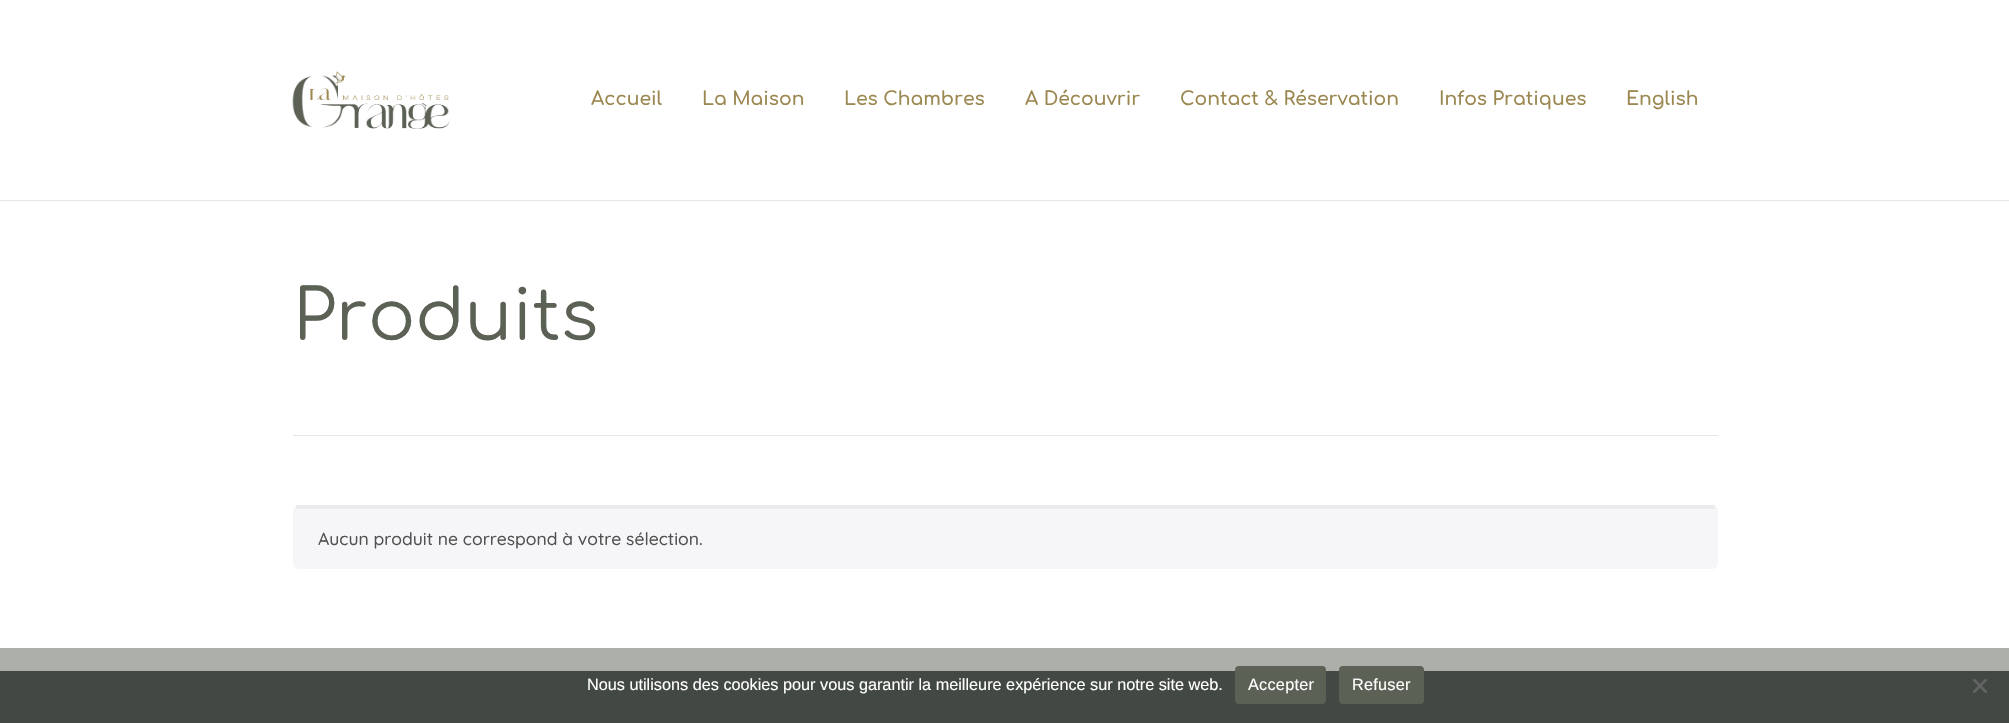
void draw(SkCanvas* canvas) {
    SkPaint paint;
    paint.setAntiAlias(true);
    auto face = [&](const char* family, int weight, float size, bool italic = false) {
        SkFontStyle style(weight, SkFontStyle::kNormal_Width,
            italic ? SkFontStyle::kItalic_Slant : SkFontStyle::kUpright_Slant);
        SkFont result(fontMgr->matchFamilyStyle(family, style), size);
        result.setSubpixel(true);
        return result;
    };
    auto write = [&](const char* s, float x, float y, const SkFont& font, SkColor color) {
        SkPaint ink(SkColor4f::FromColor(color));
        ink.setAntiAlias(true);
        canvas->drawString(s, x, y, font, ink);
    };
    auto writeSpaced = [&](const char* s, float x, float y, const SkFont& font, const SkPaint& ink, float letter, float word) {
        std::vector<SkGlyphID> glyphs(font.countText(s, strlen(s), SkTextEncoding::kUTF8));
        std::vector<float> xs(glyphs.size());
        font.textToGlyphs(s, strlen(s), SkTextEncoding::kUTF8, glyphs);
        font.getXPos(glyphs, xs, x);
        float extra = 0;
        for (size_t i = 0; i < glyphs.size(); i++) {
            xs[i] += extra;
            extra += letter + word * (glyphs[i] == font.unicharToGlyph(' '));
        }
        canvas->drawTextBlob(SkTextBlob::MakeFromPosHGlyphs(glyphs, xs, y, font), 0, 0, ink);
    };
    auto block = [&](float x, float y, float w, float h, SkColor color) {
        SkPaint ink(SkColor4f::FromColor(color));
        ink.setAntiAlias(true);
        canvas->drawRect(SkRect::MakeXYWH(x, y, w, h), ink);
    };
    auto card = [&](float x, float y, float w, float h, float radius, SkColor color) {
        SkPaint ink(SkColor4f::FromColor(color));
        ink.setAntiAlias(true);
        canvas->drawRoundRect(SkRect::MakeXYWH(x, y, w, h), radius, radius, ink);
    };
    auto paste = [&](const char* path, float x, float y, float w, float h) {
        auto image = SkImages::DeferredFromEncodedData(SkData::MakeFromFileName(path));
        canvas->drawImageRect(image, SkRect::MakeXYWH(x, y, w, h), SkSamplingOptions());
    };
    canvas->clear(SK_ColorWHITE);
    block(0, 648, 2009, 23, SkColorSetRGB(173, 176, 170));
    block(0, 200, 2009, 1, SkColorSetRGB(231, 231, 231));
    paste("pic1.png", 292, 71, 158, 58);
    auto kFont1 = face("Comfortaa", 600, 18.75f);
    write("Accueil", 591, 105, kFont1, SkColorSetRGB(155, 135, 80));
    write("La Maison", 702, 105, kFont1, SkColorSetRGB(155, 135, 80));
    write("Les Chambres", 844, 105, kFont1, SkColorSetRGB(155, 135, 80));
    write("A Découvrir", 1025, 105, kFont1, SkColorSetRGB(155, 135, 80));
    write("Contact & Réservation", 1180, 105, kFont1, SkColorSetRGB(155, 135, 80));
    write("Infos Pratiques", 1439, 105, kFont1, SkColorSetRGB(155, 135, 80));
    write("English", 1626, 105, kFont1, SkColorSetRGB(155, 135, 80));
    block(293, 435, 1425, 1, SkColorSetRGB(230, 230, 230));
    auto kFont2 = face("Comfortaa", 400, 70);
    write("Produits", 293, 340, kFont2, SkColorSetRGB(91, 97, 85));
    card(293, 505, 1425, 64, 6, SkColorSetRGB(246, 245, 248));
    block(296, 505, 1419, 4, SkColorSetRGB(235, 233, 235));
    auto kFont3 = face("Quicksand", 500, 17.5f);
    write("Aucun produit ne correspond à votre sélection.", 318, 545, kFont3, SkColorSetRGB(81, 81, 81));
    block(0, 671, 2009, 52, SkColorSetRGB(66, 72, 67));
    auto kFont4 = face("Liberation Sans", 400, 16.25f);
    write("Nous utilisons des cookies pour vous garantir la meilleure expérience sur notre site web.", 587, 690, kFont4, SK_ColorWHITE);
    card(1235, 666, 91, 38, 4, SkColorSetRGB(91, 97, 85));
    paint.setColor(SK_ColorWHITE);
    writeSpaced("Accepter", 1248, 690, kFont4, paint, 0.25f, 0);
    card(1339, 666, 85, 38, 4, SkColorSetRGB(91, 97, 85));
    writeSpaced("Refuser", 1352, 690, kFont4, paint, 0.25f, 0);
    paint.setColor(SkColorSetRGB(97, 100, 98));
    canvas->drawPath(SkPathBuilder().moveTo(1985.5f, 678.5f).lineTo(1987.5f, 680).lineTo(1974.5f, 693.5f).lineTo(1972.5f, 691.5f).close().detach(), paint);
    canvas->drawPath(SkPathBuilder().moveTo(1972.5f, 680).lineTo(1974.5f, 678.5f).lineTo(1987.5f, 691.5f).lineTo(1985.5f, 693.5f).close().detach(), paint);
}
